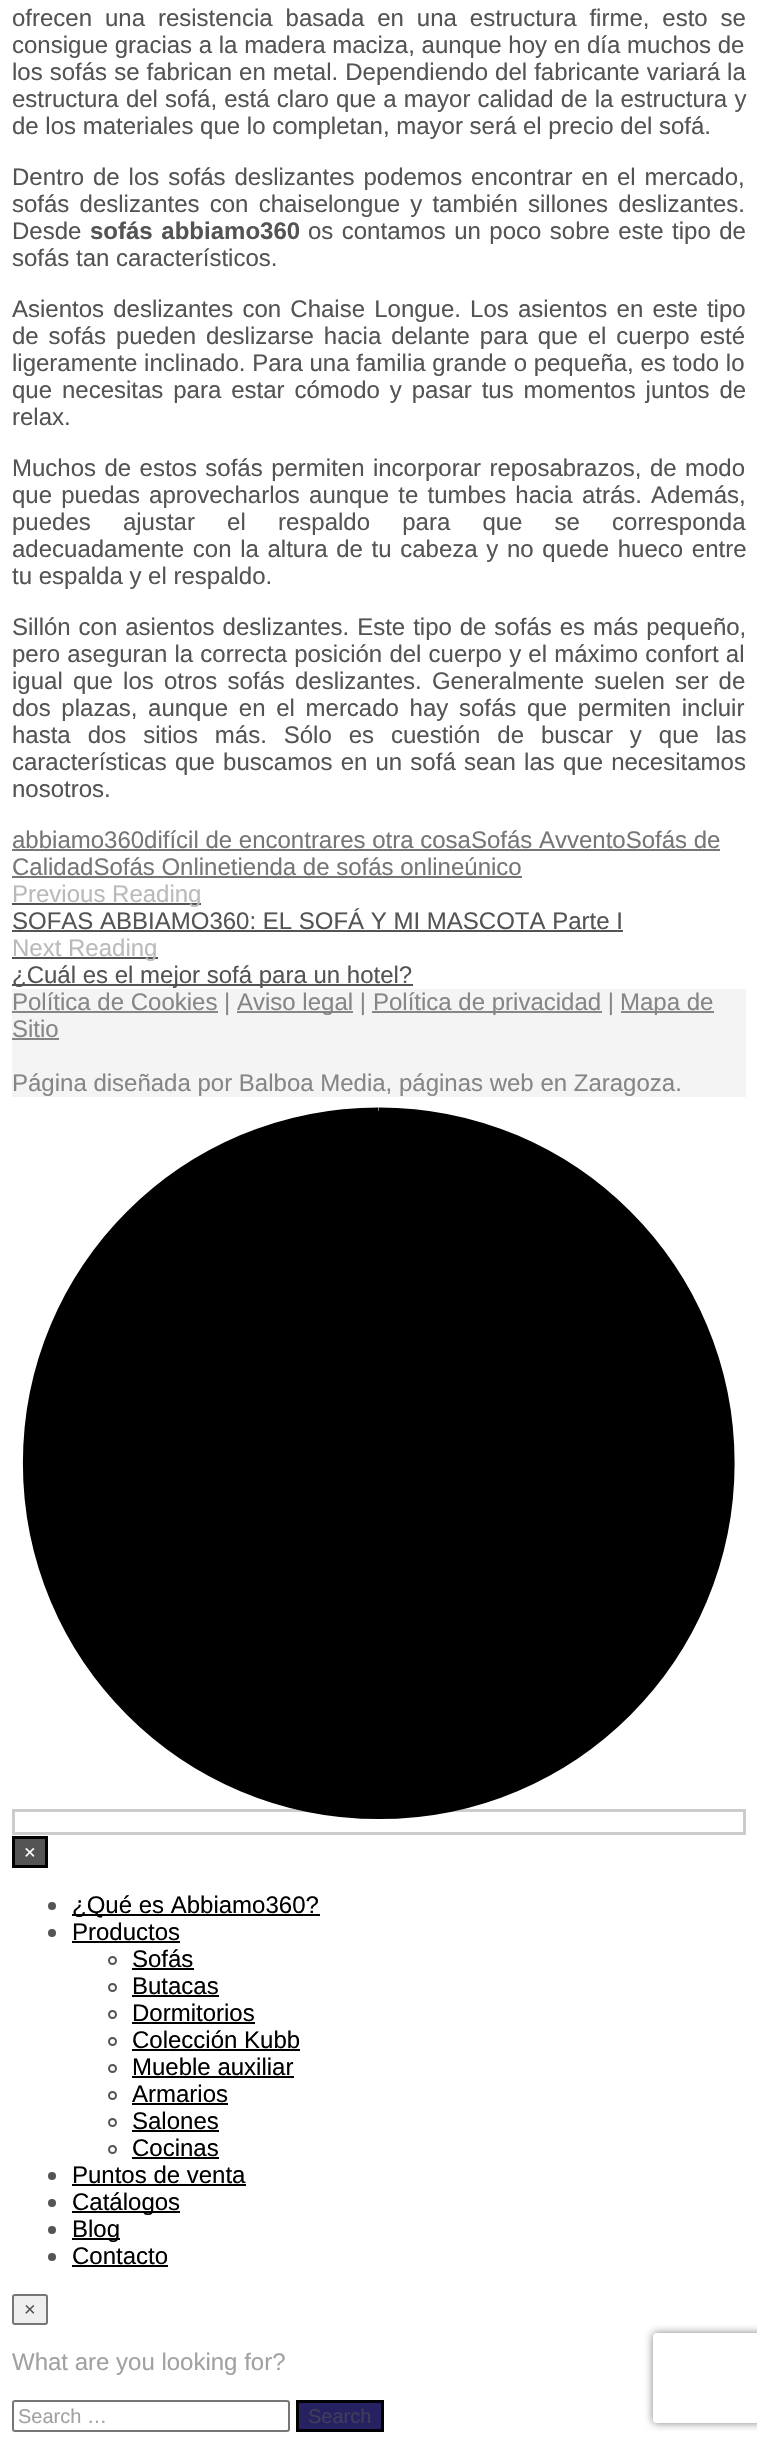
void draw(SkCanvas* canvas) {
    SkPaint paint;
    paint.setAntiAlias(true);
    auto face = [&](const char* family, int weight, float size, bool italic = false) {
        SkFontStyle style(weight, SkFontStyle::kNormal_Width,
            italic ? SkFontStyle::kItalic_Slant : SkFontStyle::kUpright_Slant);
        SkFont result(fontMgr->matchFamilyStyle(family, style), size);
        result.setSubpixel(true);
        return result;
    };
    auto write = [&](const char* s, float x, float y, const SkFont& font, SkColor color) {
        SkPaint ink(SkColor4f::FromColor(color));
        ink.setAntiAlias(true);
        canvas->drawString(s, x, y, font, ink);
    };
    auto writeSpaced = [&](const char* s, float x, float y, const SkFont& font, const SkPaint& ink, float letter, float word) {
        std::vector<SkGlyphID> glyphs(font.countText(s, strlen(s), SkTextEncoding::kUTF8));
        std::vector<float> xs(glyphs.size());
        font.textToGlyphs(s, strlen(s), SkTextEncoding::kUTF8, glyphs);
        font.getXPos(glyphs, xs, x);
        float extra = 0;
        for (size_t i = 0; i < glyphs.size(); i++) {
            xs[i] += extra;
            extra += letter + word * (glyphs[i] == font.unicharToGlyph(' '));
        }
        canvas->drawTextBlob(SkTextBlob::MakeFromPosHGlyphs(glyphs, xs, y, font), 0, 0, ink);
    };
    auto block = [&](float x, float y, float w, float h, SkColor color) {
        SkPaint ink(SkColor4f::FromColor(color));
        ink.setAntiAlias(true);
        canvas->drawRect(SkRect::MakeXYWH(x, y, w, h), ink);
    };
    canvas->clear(SK_ColorWHITE);
    auto kFont1 = face("Liberation Sans", 400, 24);
    paint.setColor(SkColorSetRGB(84, 84, 84));
    writeSpaced("ofrecen una resistencia basada en una estructura firme, esto se", 12, 26, kFont1, paint, 0, 6.25f);
    write("consigue gracias a la madera maciza, aunque hoy en día muchos de", 12, 53, kFont1, SkColorSetRGB(84, 84, 84));
    writeSpaced("los sofás se fabrican en metal. Dependiendo del fabricante variará la", 12, 80, kFont1, paint, 0, 0.4f);
    writeSpaced("estructura del sofá, está claro que a mayor calidad de la estructura y", 12, 107, kFont1, paint, 0, 0.5f);
    write("de los materiales que lo completan, mayor será el precio del sofá.", 12, 134, kFont1, SkColorSetRGB(84, 84, 84));
    writeSpaced("Dentro de los sofás deslizantes podemos encontrar en el mercado,", 12, 185, kFont1, paint, 0, 2.25f);
    writeSpaced("sofás deslizantes con chaiselongue y también sillones deslizantes.", 12, 212, kFont1, paint, 0, 3.5f);
    write("Desde", 12, 239, kFont1, SkColorSetRGB(84, 84, 84));
    auto kFont2 = face("Liberation Sans", 700, 24);
    writeSpaced("sofás abbiamo360", 90, 239, kFont2, paint, 0, 2);
    writeSpaced("os contamos un poco sobre este tipo de", 308, 239, kFont1, paint, 0, 1.75f);
    write("sofás tan característicos.", 12, 266, kFont1, SkColorSetRGB(84, 84, 84));
    writeSpaced("Asientos deslizantes con Chaise Longue. Los asientos en este tipo", 12, 317, kFont1, paint, 0, 2.5f);
    writeSpaced("de sofás pueden deslizarse hacia delante para que el cuerpo esté", 12, 344, kFont1, paint, 0, 3.25f);
    write("ligeramente inclinado. Para una familia grande o pequeña, es todo lo", 12, 371, kFont1, SkColorSetRGB(84, 84, 84));
    writeSpaced("que necesitas para estar cómodo y pasar tus momentos juntos de", 12, 398, kFont1, paint, 0, 3.25f);
    write("relax.", 12, 425, kFont1, SkColorSetRGB(84, 84, 84));
    writeSpaced("Muchos de estos sofás permiten incorporar reposabrazos, de modo", 12, 476, kFont1, paint, 0, 1.75f);
    writeSpaced("que puedas aprovecharlos aunque te tumbes hacia atrás. Además,", 12, 503, kFont1, paint, 0, 2.5f);
    writeSpaced("puedes ajustar el respaldo para que se corresponda", 12, 530, kFont1, paint, 0, 25.5f);
    writeSpaced("adecuadamente con la altura de tu cabeza y no quede hueco entre", 12, 557, kFont1, paint, 0, 2);
    write("tu espalda y el respaldo.", 12, 584, kFont1, SkColorSetRGB(84, 84, 84));
    writeSpaced("Sillón con asientos deslizantes. Este tipo de sofás es más pequeño,", 12, 635, kFont1, paint, 0, 1.25f);
    writeSpaced("pero aseguran la correcta posición del cuerpo y el máximo confort al", 12, 662, kFont1, paint, 0, 0.5f);
    writeSpaced("igual que los otros sofás deslizantes. Generalmente suelen ser de", 12, 689, kFont1, paint, 0, 3.5f);
    writeSpaced("dos plazas, aunque en el mercado hay sofás que permiten incluir", 12, 716, kFont1, paint, 0, 4);
    writeSpaced("hasta dos sitios más. Sólo es cuestión de buscar y que las", 12, 743, kFont1, paint, 0, 10.25f);
    writeSpaced("características que buscamos en un sofá sean las que necesitamos", 12, 770, kFont1, paint, 0, 1.5f);
    write("nosotros.", 12, 797, kFont1, SkColorSetRGB(84, 84, 84));
    write("abbiamo360difícil de encontrares otra cosaSofás AvventoSofás de", 12, 848, kFont1, SkColorSetRGB(118, 118, 118));
    block(12, 849, 708, 2, SkColorSetRGB(118, 118, 118));
    write("CalidadSofás Onlinetienda de sofás onlineúnico", 12, 875, kFont1, SkColorSetRGB(118, 118, 118));
    block(12, 876, 510, 2, SkColorSetRGB(118, 118, 118));
    block(12, 903, 189, 2, SkColorSetRGB(84, 84, 84));
    write("Previous Reading", 12, 902, kFont1, SkColorSetRGB(186, 186, 186));
    write("SOFAS ABBIAMO360: EL SOFÁ Y MI MASCOTA Parte I", 12, 929, kFont1, SkColorSetRGB(84, 84, 84));
    block(12, 930, 611, 2, SkColorSetRGB(84, 84, 84));
    block(12, 957, 146, 2, SkColorSetRGB(84, 84, 84));
    write("Next Reading", 12, 956, kFont1, SkColorSetRGB(186, 186, 186));
    block(12, 984, 401, 2, SkColorSetRGB(84, 84, 84));
    write("¿Cuál es el mejor sofá para un hotel?", 12, 983, kFont1, SkColorSetRGB(84, 84, 84));
    block(12, 989, 734, 108, SkColorSetRGB(244, 244, 244));
    block(12, 1011, 206, 2, SkColorSetRGB(134, 134, 134));
    write("Política de Cookies |", 12, 1010, kFont1, SkColorSetRGB(134, 134, 134));
    block(237, 1011, 116, 2, SkColorSetRGB(134, 134, 134));
    write("Aviso legal |", 237, 1010, kFont1, SkColorSetRGB(134, 134, 134));
    block(372, 1011, 230, 2, SkColorSetRGB(134, 134, 134));
    write("Política de privacidad |", 373, 1010, kFont1, SkColorSetRGB(134, 134, 134));
    block(621, 1011, 93, 2, SkColorSetRGB(134, 134, 134));
    write("Mapa de", 620, 1010, kFont1, SkColorSetRGB(134, 134, 134));
    write("Sitio", 12, 1037, kFont1, SkColorSetRGB(134, 134, 134));
    block(12, 1038, 47, 2, SkColorSetRGB(134, 134, 134));
    write("Página diseñada por Balboa Media, páginas web en Zaragoza.", 12, 1091, kFont1, SkColorSetRGB(134, 134, 134));
    paint.setStyle(SkPaint::kStroke_Style);
    paint.setStrokeWidth(3);
    paint.setColor(SkColorSetRGB(204, 204, 204));
    canvas->drawRect(SkRect::MakeXYWH(13.5f, 1810.5f, 731, 23), paint);
    paint.setStyle(SkPaint::kFill_Style);
    paint.setColor(SK_ColorBLACK);
    canvas->drawPath(SkPathBuilder().moveTo(379, 1111).cubicTo(573, 1111, 731, 1269, 731, 1463).cubicTo(731, 1658, 573, 1816, 379, 1816).cubicTo(184, 1816, 26, 1658, 26, 1463).cubicTo(26, 1269, 184, 1111, 379, 1111).detach(), paint);
    paint.setStyle(SkPaint::kStroke_Style);
    paint.setStrokeWidth(7.2f);
    canvas->drawPath(SkPathBuilder().moveTo(379, 1111).cubicTo(573.5f, 1111, 731, 1268.5f, 731, 1463).cubicTo(731, 1658, 573.5f, 1815.5f, 379, 1815.5f).cubicTo(184, 1815.5f, 26.5f, 1658, 26.5f, 1463).cubicTo(26.5f, 1268.5f, 184, 1111, 378.5f, 1111).detach(), paint);
    paint.setStyle(SkPaint::kFill_Style);
    paint.setColor(SkColorSetRGB(84, 84, 84));
    canvas->drawRect(SkRect::MakeXYWH(13.5f, 1837.5f, 33, 29), paint);
    paint.setStyle(SkPaint::kStroke_Style);
    paint.setStrokeWidth(3);
    paint.setColor(SK_ColorBLACK);
    canvas->drawRect(SkRect::MakeXYWH(13.5f, 1837.5f, 33, 29), paint);
    auto kFont3 = face("Liberation Sans", 400, 20);
    write("×", 24, 1859, kFont3, SK_ColorWHITE);
    paint.setStyle(SkPaint::kFill_Style);
    paint.setColor(SkColorSetRGB(84, 84, 84));
    canvas->drawCircle(52, 1906, 4, paint);
    block(72, 1914, 248, 2, SK_ColorBLACK);
    write("¿Qué es Abbiamo360?", 72, 1913, kFont1, SK_ColorBLACK);
    canvas->drawCircle(52, 1933, 4, paint);
    write("Productos", 72, 1940, kFont1, SK_ColorBLACK);
    block(72, 1941, 108, 2, SK_ColorBLACK);
    paint.setStyle(SkPaint::kStroke_Style);
    paint.setStrokeWidth(2);
    canvas->drawCircle(112.5f, 1960.5f, 3.5f, paint);
    write("Sofás", 132, 1967, kFont1, SK_ColorBLACK);
    block(132, 1968, 62, 2, SK_ColorBLACK);
    canvas->drawCircle(112.5f, 1987.5f, 3.5f, paint);
    write("Butacas", 132, 1994, kFont1, SK_ColorBLACK);
    block(132, 1995, 87, 2, SK_ColorBLACK);
    canvas->drawCircle(112.5f, 2014.5f, 3.5f, paint);
    write("Dormitorios", 132, 2021, kFont1, SK_ColorBLACK);
    block(132, 2022, 123, 2, SK_ColorBLACK);
    canvas->drawCircle(112.5f, 2041.5f, 3.5f, paint);
    write("Colección Kubb", 132, 2048, kFont1, SK_ColorBLACK);
    block(132, 2049, 168, 2, SK_ColorBLACK);
    canvas->drawCircle(112.5f, 2068.5f, 3.5f, paint);
    write("Mueble auxiliar", 132, 2075, kFont1, SK_ColorBLACK);
    block(132, 2076, 162, 2, SK_ColorBLACK);
    canvas->drawCircle(112.5f, 2095.5f, 3.5f, paint);
    write("Armarios", 132, 2102, kFont1, SK_ColorBLACK);
    block(132, 2103, 96, 2, SK_ColorBLACK);
    canvas->drawCircle(112.5f, 2122.5f, 3.5f, paint);
    write("Salones", 132, 2129, kFont1, SK_ColorBLACK);
    block(132, 2130, 87, 2, SK_ColorBLACK);
    canvas->drawCircle(112.5f, 2149.5f, 3.5f, paint);
    write("Cocinas", 132, 2156, kFont1, SK_ColorBLACK);
    block(132, 2157, 87, 2, SK_ColorBLACK);
    paint.setStyle(SkPaint::kFill_Style);
    canvas->drawCircle(52, 2176, 4, paint);
    write("Puntos de venta", 72, 2183, kFont1, SK_ColorBLACK);
    block(72, 2184, 174, 2, SK_ColorBLACK);
    canvas->drawCircle(52, 2203, 4, paint);
    block(72, 2211, 108, 2, SK_ColorBLACK);
    write("Catálogos", 72, 2210, kFont1, SK_ColorBLACK);
    canvas->drawCircle(52, 2230, 4, paint);
    block(72, 2238, 48, 2, SK_ColorBLACK);
    write("Blog", 72, 2237, kFont1, SK_ColorBLACK);
    canvas->drawCircle(52, 2257, 4, paint);
    write("Contacto", 72, 2264, kFont1, SK_ColorBLACK);
    block(72, 2265, 96, 2, SK_ColorBLACK);
    paint.setColor(SkColorSetRGB(239, 239, 239));
    canvas->drawRoundRect(SkRect::MakeXYWH(13, 2295, 34, 29), 2, 2, paint);
    paint.setStyle(SkPaint::kStroke_Style);
    paint.setColor(SkColorSetRGB(118, 118, 118));
    canvas->drawRoundRect(SkRect::MakeXYWH(13, 2295, 34, 29), 2, 2, paint);
    write("×", 24, 2316, kFont3, SkColorSetRGB(84, 84, 84));
    write("What are you looking for?", 12, 2370, kFont1, SkColorSetRGB(161, 161, 161));
    canvas->drawRoundRect(SkRect::MakeXYWH(13, 2401, 276, 30), 2, 2, paint);
    write("Search …", 18, 2423, kFont3, SkColorSetRGB(161, 161, 161));
    paint.setStyle(SkPaint::kFill_Style);
    paint.setColor(SkColorSetRGB(38, 34, 98));
    canvas->drawRect(SkRect::MakeXYWH(297.5f, 2401.5f, 85, 29), paint);
    paint.setStyle(SkPaint::kStroke_Style);
    paint.setStrokeWidth(3);
    paint.setColor(SK_ColorBLACK);
    canvas->drawRect(SkRect::MakeXYWH(297.5f, 2401.5f, 85, 29), paint);
    write("Search", 308, 2423, kFont3, SkColorSetRGB(63, 62, 90));
    canvas->save();
    canvas->clipPath(SkPathBuilder(SkPathFillType::kEvenOdd).moveTo(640, 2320).lineTo(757, 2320).lineTo(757, 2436).lineTo(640, 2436).close().moveTo(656, 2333).lineTo(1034, 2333).cubicTo(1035.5f, 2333, 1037, 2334.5f, 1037, 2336).lineTo(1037, 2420).cubicTo(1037, 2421.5f, 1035.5f, 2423, 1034, 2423).lineTo(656, 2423).cubicTo(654.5f, 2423, 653, 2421.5f, 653, 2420).lineTo(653, 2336).cubicTo(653, 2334.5f, 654.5f, 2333, 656, 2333).close().detach(), true);
    paint.setStyle(SkPaint::kFill_Style);
    paint.setColor(SkColorSetRGB(128, 128, 128));
    paint.setMaskFilter(SkMaskFilter::MakeBlur(kNormal_SkBlurStyle, 4));
    canvas->drawRoundRect(SkRect::MakeXYWH(653, 2333, 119, 90), 3, 3, paint);
    paint.setMaskFilter(nullptr);
    canvas->restore();
}
